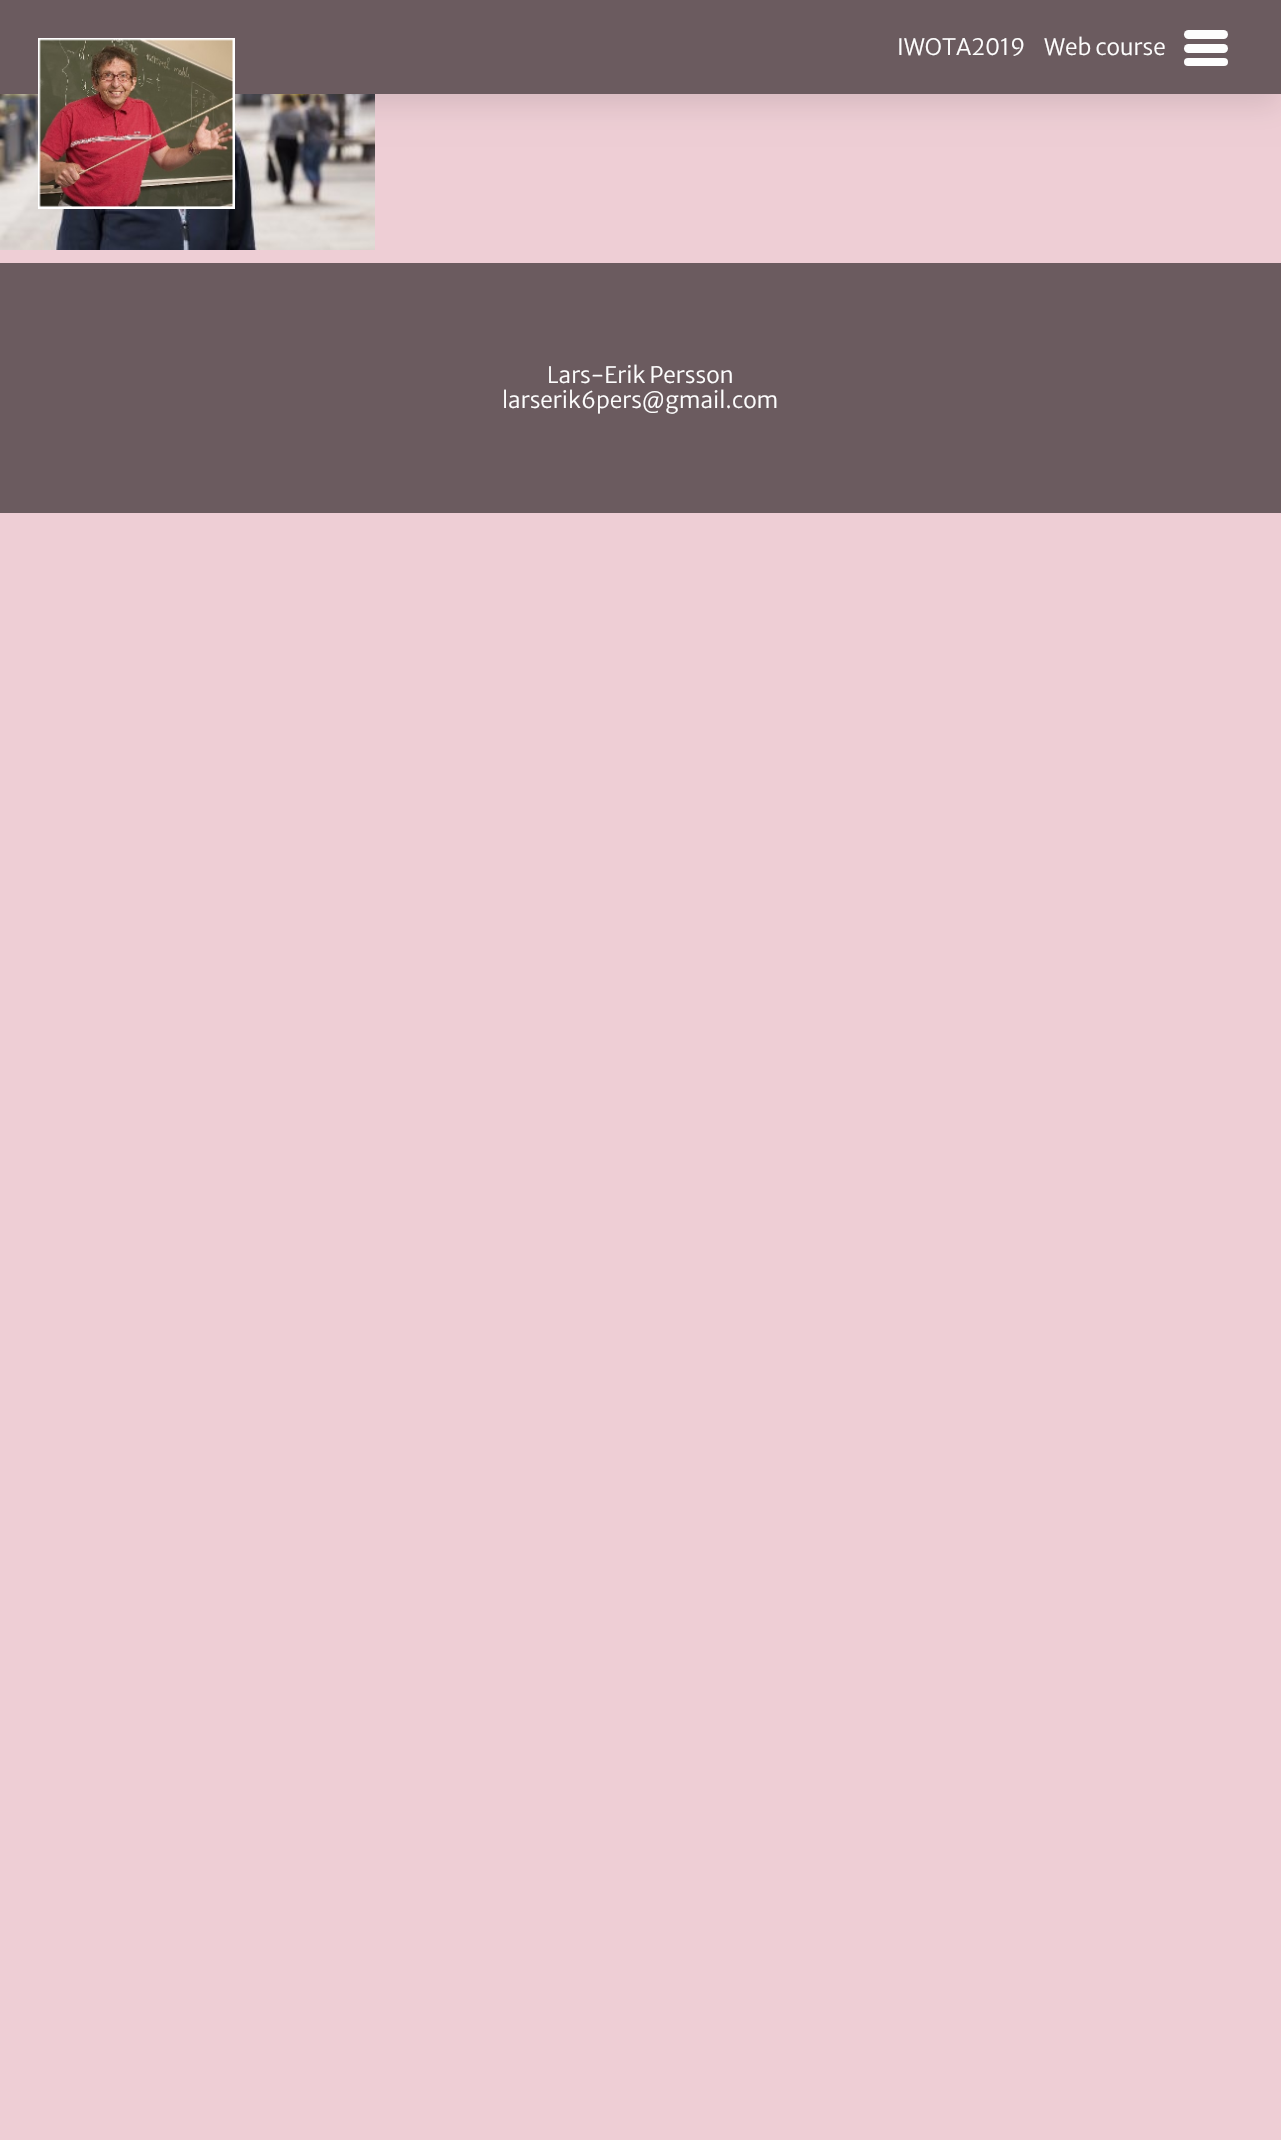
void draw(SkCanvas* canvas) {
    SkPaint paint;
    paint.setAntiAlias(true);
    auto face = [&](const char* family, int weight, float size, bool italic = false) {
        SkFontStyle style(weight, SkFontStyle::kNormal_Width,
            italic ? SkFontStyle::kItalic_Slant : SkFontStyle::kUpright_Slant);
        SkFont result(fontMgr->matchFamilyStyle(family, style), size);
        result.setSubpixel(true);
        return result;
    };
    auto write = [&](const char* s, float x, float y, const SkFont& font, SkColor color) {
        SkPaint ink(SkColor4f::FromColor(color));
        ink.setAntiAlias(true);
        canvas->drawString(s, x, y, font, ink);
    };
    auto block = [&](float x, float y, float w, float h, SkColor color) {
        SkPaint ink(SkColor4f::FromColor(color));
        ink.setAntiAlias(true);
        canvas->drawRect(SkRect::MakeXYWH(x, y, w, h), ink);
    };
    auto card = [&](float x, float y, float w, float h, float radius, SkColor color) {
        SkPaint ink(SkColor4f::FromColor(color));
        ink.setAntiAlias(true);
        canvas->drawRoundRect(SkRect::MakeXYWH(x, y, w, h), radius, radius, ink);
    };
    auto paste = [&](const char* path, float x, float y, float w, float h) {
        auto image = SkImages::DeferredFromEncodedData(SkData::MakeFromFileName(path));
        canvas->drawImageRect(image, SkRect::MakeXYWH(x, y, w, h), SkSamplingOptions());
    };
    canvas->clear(SkColorSetRGB(238, 206, 213));
    paste("pic2.png", 0, 94, 375, 156);
    paint.setColor(SkColorSetARGB(26, 0, 0, 0));
    paint.setMaskFilter(SkMaskFilter::MakeBlur(kNormal_SkBlurStyle, 14));
    canvas->drawRect(SkRect::MakeXYWH(0, 11, 1281, 94), paint);
    paint.setMaskFilter(nullptr);
    block(0, 0, 1281, 94, SkColorSetRGB(107, 91, 95));
    paint.setStyle(SkPaint::kStroke_Style);
    paint.setStrokeWidth(3);
    paint.setColor(SK_ColorWHITE);
    canvas->drawRect(SkRect::MakeXYWH(39.5f, 39.5f, 194, 168), paint);
    paste("pic1.png", 39, 39, 194, 168);
    auto kFont1 = face("Merriweather Sans", 300, 22.5f);
    write("IWOTA2019", 897, 55, kFont1, SkColorSetRGB(253, 253, 253));
    write("Web course", 1044, 55, kFont1, SkColorSetRGB(253, 253, 253));
    card(1184, 30, 44, 9, 4.5f, SkColorSetRGB(253, 253, 253));
    card(1184, 44, 44, 9, 4.5f, SkColorSetRGB(253, 253, 253));
    card(1184, 58, 44, 8, 4, SkColorSetRGB(253, 253, 253));
    block(0, 263, 1281, 250, SkColorSetRGB(107, 91, 95));
    write("Lars-Erik Persson", 547, 383, kFont1, SkColorSetRGB(253, 253, 253));
    write("larserik6pers@gmail.com", 502, 408, kFont1, SkColorSetRGB(253, 253, 253));
}
